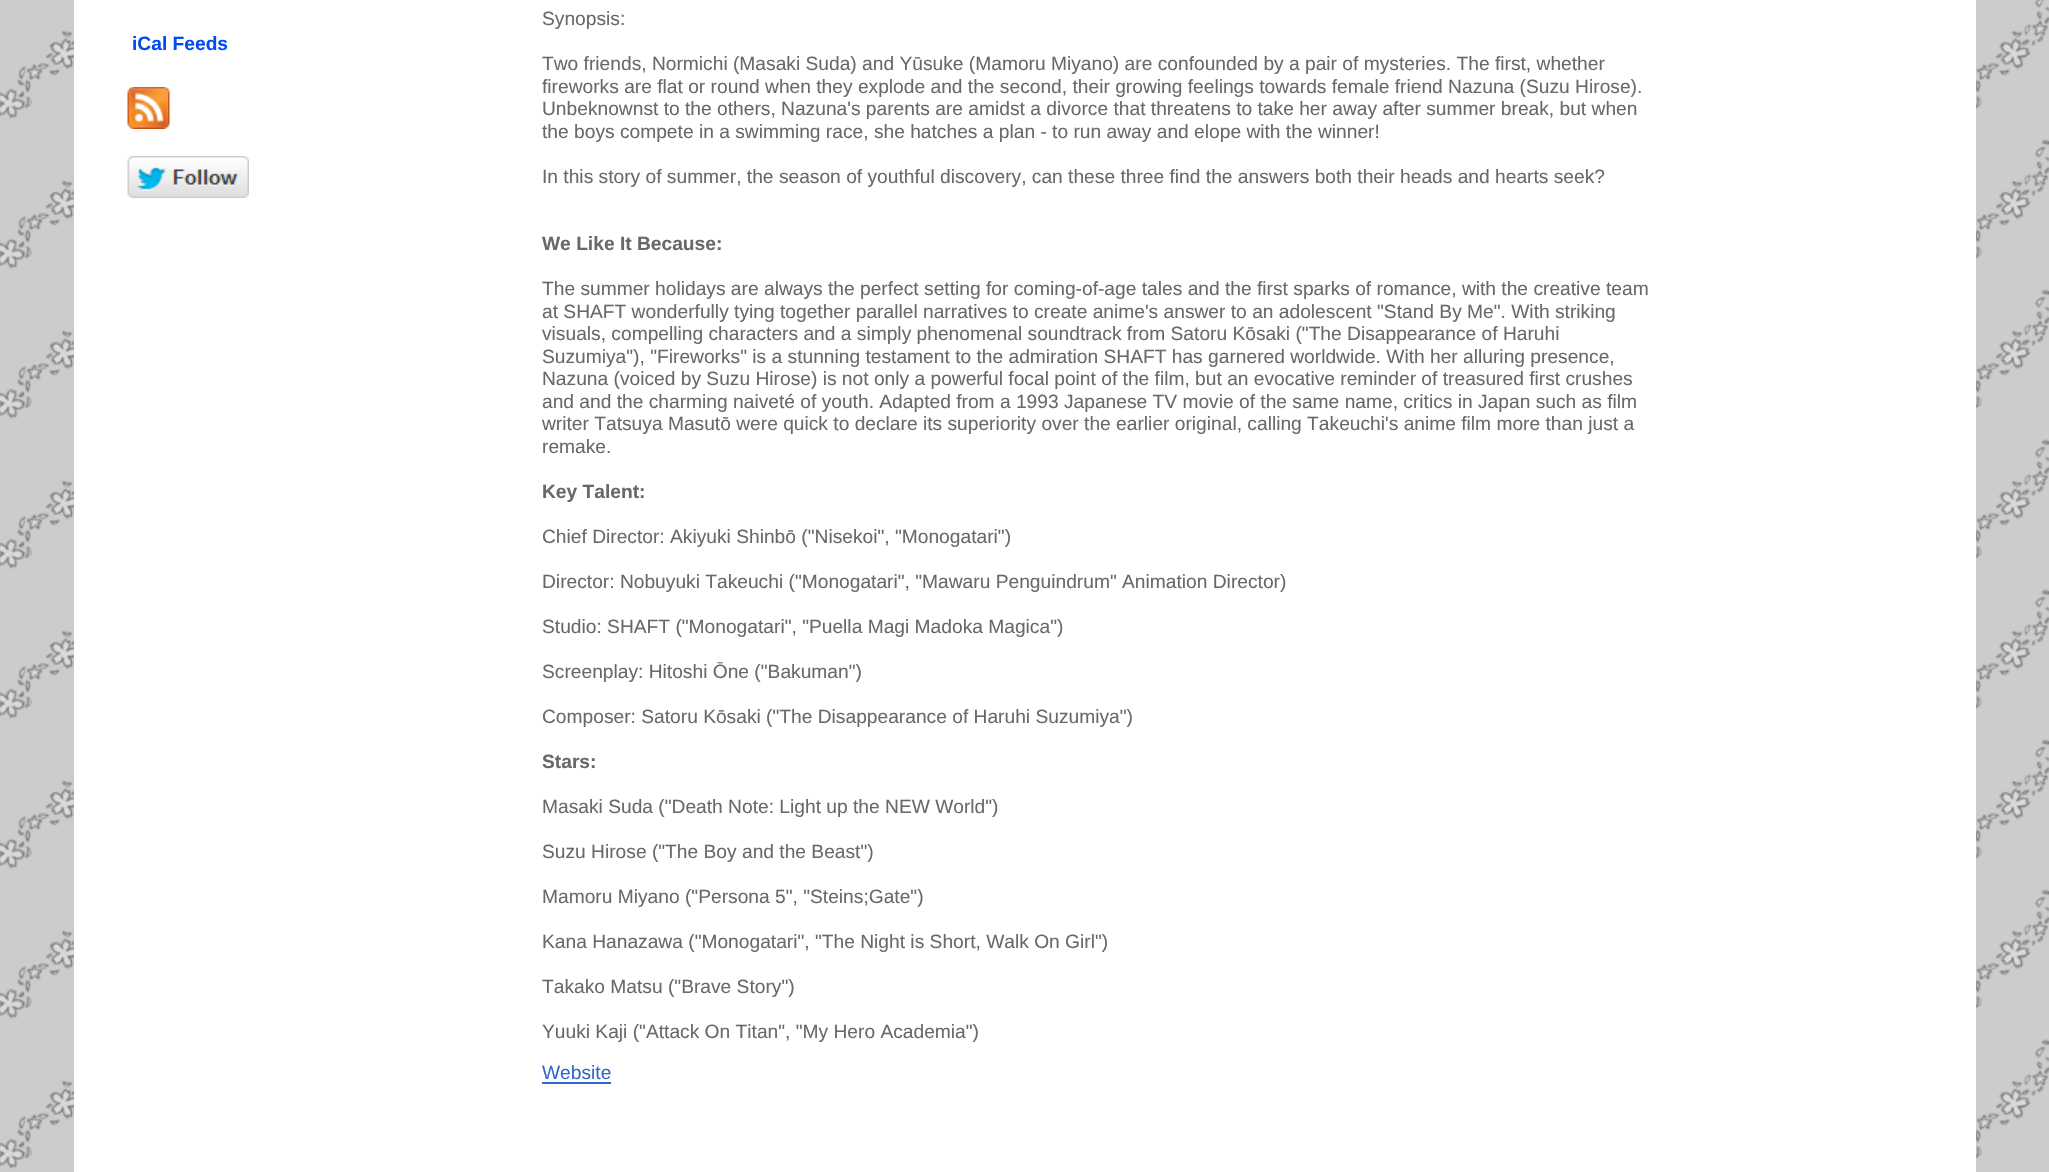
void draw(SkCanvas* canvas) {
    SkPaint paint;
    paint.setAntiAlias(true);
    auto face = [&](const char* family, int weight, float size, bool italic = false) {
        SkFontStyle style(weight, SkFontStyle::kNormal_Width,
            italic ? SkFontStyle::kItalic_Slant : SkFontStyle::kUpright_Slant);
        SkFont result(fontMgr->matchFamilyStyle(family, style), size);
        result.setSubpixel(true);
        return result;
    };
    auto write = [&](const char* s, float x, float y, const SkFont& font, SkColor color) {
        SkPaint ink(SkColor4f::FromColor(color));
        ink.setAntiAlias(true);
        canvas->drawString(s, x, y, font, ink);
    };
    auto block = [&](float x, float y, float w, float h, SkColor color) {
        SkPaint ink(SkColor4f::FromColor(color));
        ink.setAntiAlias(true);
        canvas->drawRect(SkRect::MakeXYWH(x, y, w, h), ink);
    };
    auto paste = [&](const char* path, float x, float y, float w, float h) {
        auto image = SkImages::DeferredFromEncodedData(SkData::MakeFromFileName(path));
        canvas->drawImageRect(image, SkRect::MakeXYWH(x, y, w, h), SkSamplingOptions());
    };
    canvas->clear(SK_ColorWHITE);
    paste("pic1.png", 0, 0, 2049, 1172);
    block(74, 0, 1902, 1172, SK_ColorWHITE);
    auto kFont1 = face("Liberation Sans", 700, 19.2f);
    write("iCal Feeds", 132, 50, kFont1, SkColorSetRGB(3, 74, 243));
    paste("pic2.png", 127, 87, 43, 42);
    paste("pic3.png", 127, 156, 122, 42);
    auto kFont2 = face("Liberation Sans", 400, 19.2f);
    write("Synopsis:", 542, 25, kFont2, SkColorSetRGB(105, 105, 105));
    write("Two friends, Normichi (Masaki Suda) and Yūsuke (Mamoru Miyano) are confounded by a pair of mysteries. The first, whether", 542, 70, kFont2, SkColorSetRGB(105, 105, 105));
    write("fireworks are flat or round when they explode and the second, their growing feelings towards female friend Nazuna (Suzu Hirose).", 542, 93, kFont2, SkColorSetRGB(105, 105, 105));
    write("Unbeknownst to the others, Nazuna's parents are amidst a divorce that threatens to take her away after summer break, but when", 542, 115, kFont2, SkColorSetRGB(105, 105, 105));
    write("the boys compete in a swimming race, she hatches a plan - to run away and elope with the winner!", 542, 138, kFont2, SkColorSetRGB(105, 105, 105));
    write("In this story of summer, the season of youthful discovery, can these three find the answers both their heads and hearts seek?", 542, 183, kFont2, SkColorSetRGB(105, 105, 105));
    write("We Like It Because:", 542, 250, kFont1, SkColorSetRGB(105, 105, 105));
    write("The summer holidays are always the perfect setting for coming-of-age tales and the first sparks of romance, with the creative team", 542, 295, kFont2, SkColorSetRGB(105, 105, 105));
    write("at SHAFT wonderfully tying together parallel narratives to create anime's answer to an adolescent \"Stand By Me\". With striking", 542, 318, kFont2, SkColorSetRGB(105, 105, 105));
    write("visuals, compelling characters and a simply phenomenal soundtrack from Satoru Kōsaki (\"The Disappearance of Haruhi", 542, 340, kFont2, SkColorSetRGB(105, 105, 105));
    write("Suzumiya\"), \"Fireworks\" is a stunning testament to the admiration SHAFT has garnered worldwide. With her alluring presence,", 542, 363, kFont2, SkColorSetRGB(105, 105, 105));
    write("Nazuna (voiced by Suzu Hirose) is not only a powerful focal point of the film, but an evocative reminder of treasured first crushes", 542, 385, kFont2, SkColorSetRGB(105, 105, 105));
    write("and and the charming naiveté of youth. Adapted from a 1993 Japanese TV movie of the same name, critics in Japan such as film", 542, 408, kFont2, SkColorSetRGB(105, 105, 105));
    write("writer Tatsuya Masutō were quick to declare its superiority over the earlier original, calling Takeuchi's anime film more than just a", 542, 430, kFont2, SkColorSetRGB(105, 105, 105));
    write("remake.", 542, 453, kFont2, SkColorSetRGB(105, 105, 105));
    write("Key Talent:", 542, 498, kFont1, SkColorSetRGB(105, 105, 105));
    write("Chief Director: Akiyuki Shinbō (\"Nisekoi\", \"Monogatari\")", 542, 543, kFont2, SkColorSetRGB(105, 105, 105));
    write("Director: Nobuyuki Takeuchi (\"Monogatari\", \"Mawaru Penguindrum\" Animation Director)", 542, 588, kFont2, SkColorSetRGB(105, 105, 105));
    write("Studio: SHAFT (\"Monogatari\", \"Puella Magi Madoka Magica\")", 542, 633, kFont2, SkColorSetRGB(105, 105, 105));
    write("Screenplay: Hitoshi Ōne (\"Bakuman\")", 542, 678, kFont2, SkColorSetRGB(105, 105, 105));
    write("Composer: Satoru Kōsaki (\"The Disappearance of Haruhi Suzumiya\")", 542, 723, kFont2, SkColorSetRGB(105, 105, 105));
    write("Stars:", 542, 768, kFont1, SkColorSetRGB(105, 105, 105));
    write("Masaki Suda (\"Death Note: Light up the NEW World\")", 542, 813, kFont2, SkColorSetRGB(105, 105, 105));
    write("Suzu Hirose (\"The Boy and the Beast\")", 542, 858, kFont2, SkColorSetRGB(105, 105, 105));
    write("Mamoru Miyano (\"Persona 5\", \"Steins;Gate\")", 542, 903, kFont2, SkColorSetRGB(105, 105, 105));
    write("Kana Hanazawa (\"Monogatari\", \"The Night is Short, Walk On Girl\")", 542, 948, kFont2, SkColorSetRGB(105, 105, 105));
    write("Takako Matsu (\"Brave Story\")", 542, 993, kFont2, SkColorSetRGB(105, 105, 105));
    write("Yuuki Kaji (\"Attack On Titan\", \"My Hero Academia\")", 542, 1038, kFont2, SkColorSetRGB(105, 105, 105));
    write("Website", 542, 1079, kFont2, SkColorSetRGB(51, 102, 204));
    block(542, 1082, 69, 2, SkColorSetRGB(51, 102, 204));
}
